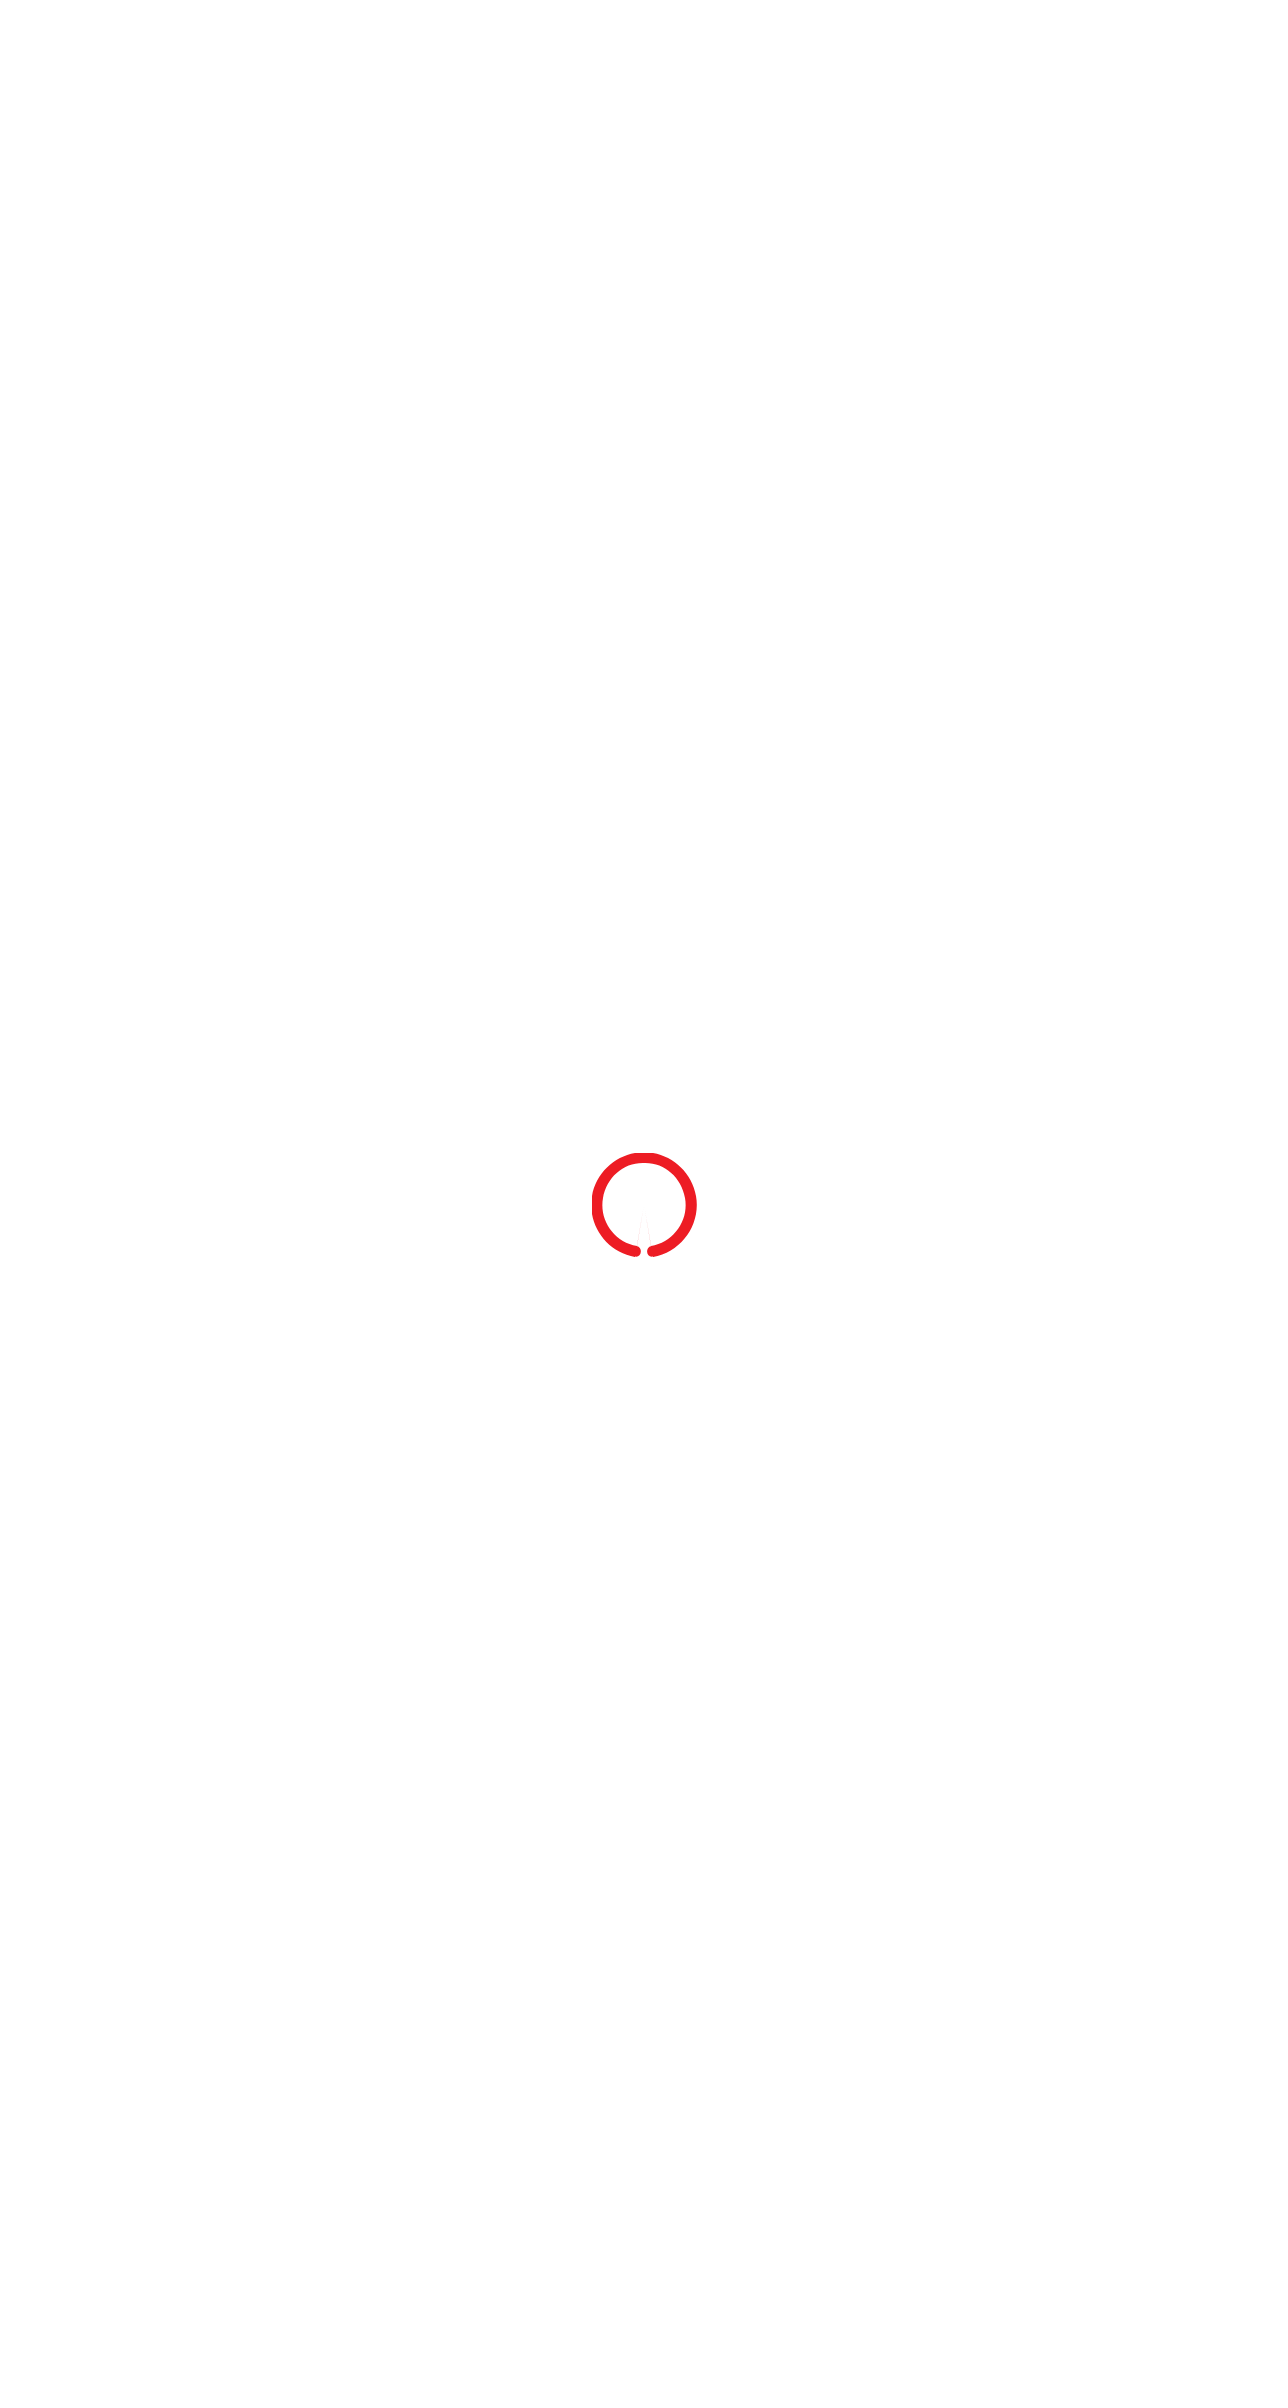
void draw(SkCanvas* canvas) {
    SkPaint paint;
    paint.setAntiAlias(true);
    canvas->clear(SK_ColorWHITE);
    canvas->save();
    canvas->clipRect(SkRect::MakeXYWH(592, 1153, 52, 105));
    paint.setColor(SkColorSetRGB(237, 28, 36));
    canvas->drawPath(SkPathBuilder(SkPathFillType::kEvenOdd).moveTo(653, 1153).lineTo(635, 1257).cubicTo(606, 1252, 587, 1224, 592, 1196).cubicTo(597, 1167, 625, 1148, 653, 1153).close().moveTo(651, 1164).lineTo(637, 1246).cubicTo(614, 1242, 599, 1220, 603, 1198).cubicTo(607, 1175, 628, 1159, 651, 1164).close().detach(), paint);
    canvas->restore();
    canvas->drawPath(SkPathBuilder().moveTo(636.5f, 1246).cubicTo(643.5f, 1247.5f, 641.5f, 1258, 635, 1256.5f).cubicTo(628, 1255.5f, 630, 1245, 636.5f, 1246).close().detach(), paint);
    canvas->save();
    canvas->clipRect(SkRect::MakeXYWH(644, 1153, 53, 105));
    canvas->drawPath(SkPathBuilder(SkPathFillType::kEvenOdd).moveTo(635, 1153).cubicTo(663, 1148, 691, 1167, 696, 1196).cubicTo(701, 1224, 682, 1252, 653, 1257).close().moveTo(637, 1164).cubicTo(660, 1159, 681, 1175, 685, 1198).cubicTo(689, 1220, 674, 1242, 651, 1246).close().detach(), paint);
    canvas->restore();
    canvas->drawPath(SkPathBuilder().moveTo(651.5f, 1246).cubicTo(658, 1245, 660, 1255.5f, 653, 1256.5f).cubicTo(646.5f, 1258, 644.5f, 1247.5f, 651.5f, 1246).close().detach(), paint);
}
